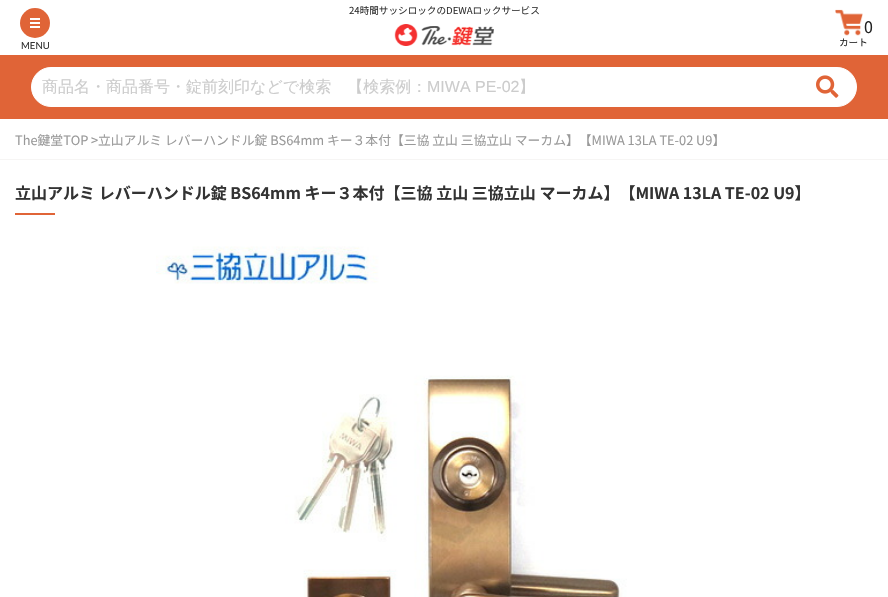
void draw(SkCanvas* canvas) {
    SkPaint paint;
    paint.setAntiAlias(true);
    auto face = [&](const char* family, int weight, float size, bool italic = false) {
        SkFontStyle style(weight, SkFontStyle::kNormal_Width,
            italic ? SkFontStyle::kItalic_Slant : SkFontStyle::kUpright_Slant);
        SkFont result(fontMgr->matchFamilyStyle(family, style), size);
        result.setSubpixel(true);
        return result;
    };
    auto write = [&](const char* s, float x, float y, const SkFont& font, SkColor color) {
        SkPaint ink(SkColor4f::FromColor(color));
        ink.setAntiAlias(true);
        canvas->drawString(s, x, y, font, ink);
    };
    auto block = [&](float x, float y, float w, float h, SkColor color) {
        SkPaint ink(SkColor4f::FromColor(color));
        ink.setAntiAlias(true);
        canvas->drawRect(SkRect::MakeXYWH(x, y, w, h), ink);
    };
    auto paste = [&](const char* path, float x, float y, float w, float h) {
        auto image = SkImages::DeferredFromEncodedData(SkData::MakeFromFileName(path));
        canvas->drawImageRect(image, SkRect::MakeXYWH(x, y, w, h), SkSamplingOptions());
    };
    canvas->clear(SK_ColorWHITE);
    auto kFont1 = face("Noto Sans JP", 400, 9.6f);
    write("24時間サッシロックのDEWAロックサービス", 349, 14, kFont1, SkColorSetRGB(51, 51, 51));
    paste("pic1.png", 394, 24, 100, 22);
    paint.setColor(SkColorSetRGB(224, 100, 55));
    canvas->drawCircle(35, 23, 15, paint);
    block(30, 18, 10, 2, SK_ColorWHITE);
    block(30, 22, 10, 2, SK_ColorWHITE);
    block(30, 26, 10, 2, SK_ColorWHITE);
    auto kFont2 = face("Lato", 400, 9.6f);
    write("MENU", 21, 49, kFont2, SkColorSetRGB(51, 51, 51));
    paste("pic2.png", 835, 9, 28, 27);
    auto kFont3 = face("Noto Sans JP", 400, 16);
    write("0", 864, 33, kFont3, SkColorSetRGB(34, 34, 34));
    write("カート", 839, 46, kFont1, SkColorSetRGB(34, 34, 34));
    block(0, 55, 888, 64, SkColorSetRGB(224, 100, 55));
    paint.setColor(SK_ColorWHITE);
    canvas->drawRoundRect(SkRect::MakeXYWH(31.5f, 67.5f, 825, 39), 19.5f, 19.5f, paint);
    paint.setStyle(SkPaint::kStroke_Style);
    paint.setStrokeWidth(1);
    canvas->drawRoundRect(SkRect::MakeXYWH(31.5f, 67.5f, 825, 39), 19.5f, 19.5f, paint);
    auto kFont4 = face("WenQuanYi Zen Hei", 500, 16);
    write("商品名・商品番号・錠前刻印などで検索　【検索例：", 42, 92, kFont4, SkColorSetRGB(204, 204, 204));
    auto kFont5 = face("Liberation Sans", 400, 16);
    write("MIWA PE-02", 427, 92, kFont5, SkColorSetRGB(204, 204, 204));
    write("】", 519, 92, kFont4, SkColorSetRGB(204, 204, 204));
    paste("pic3.png", 816, 75, 23, 23);
    block(0, 159, 888, 1, SkColorSetRGB(246, 245, 244));
    auto kFont6 = face("Noto Sans CJK JP", 400, 12.8f);
    write("The鍵堂TOP", 15, 145, kFont6, SkColorSetRGB(153, 153, 153));
    auto kFont7 = face("Noto Sans JP", 400, 12.8f);
    write(">", 91, 145, kFont7, SkColorSetRGB(153, 153, 153));
    write("立山アルミ レバーハンドル錠 BS64mm キー３本付【三協 立山 三協立山 マーカム】【MIWA 13LA TE-02 U9】", 98, 145, kFont6, SkColorSetRGB(153, 153, 153));
    auto kFont8 = face("Noto Sans CJK JP", 700, 16);
    write("立山アルミ レバーハンドル錠 BS64mm キー３本付【三協 立山 三協立山 マーカム】【MIWA 13LA TE-02 U9】", 15, 199, kFont8, SkColorSetRGB(51, 51, 51));
    block(15, 213, 40, 2, SkColorSetRGB(224, 100, 55));
    paste("pic4.png", 156, 246, 471, 351);
}
